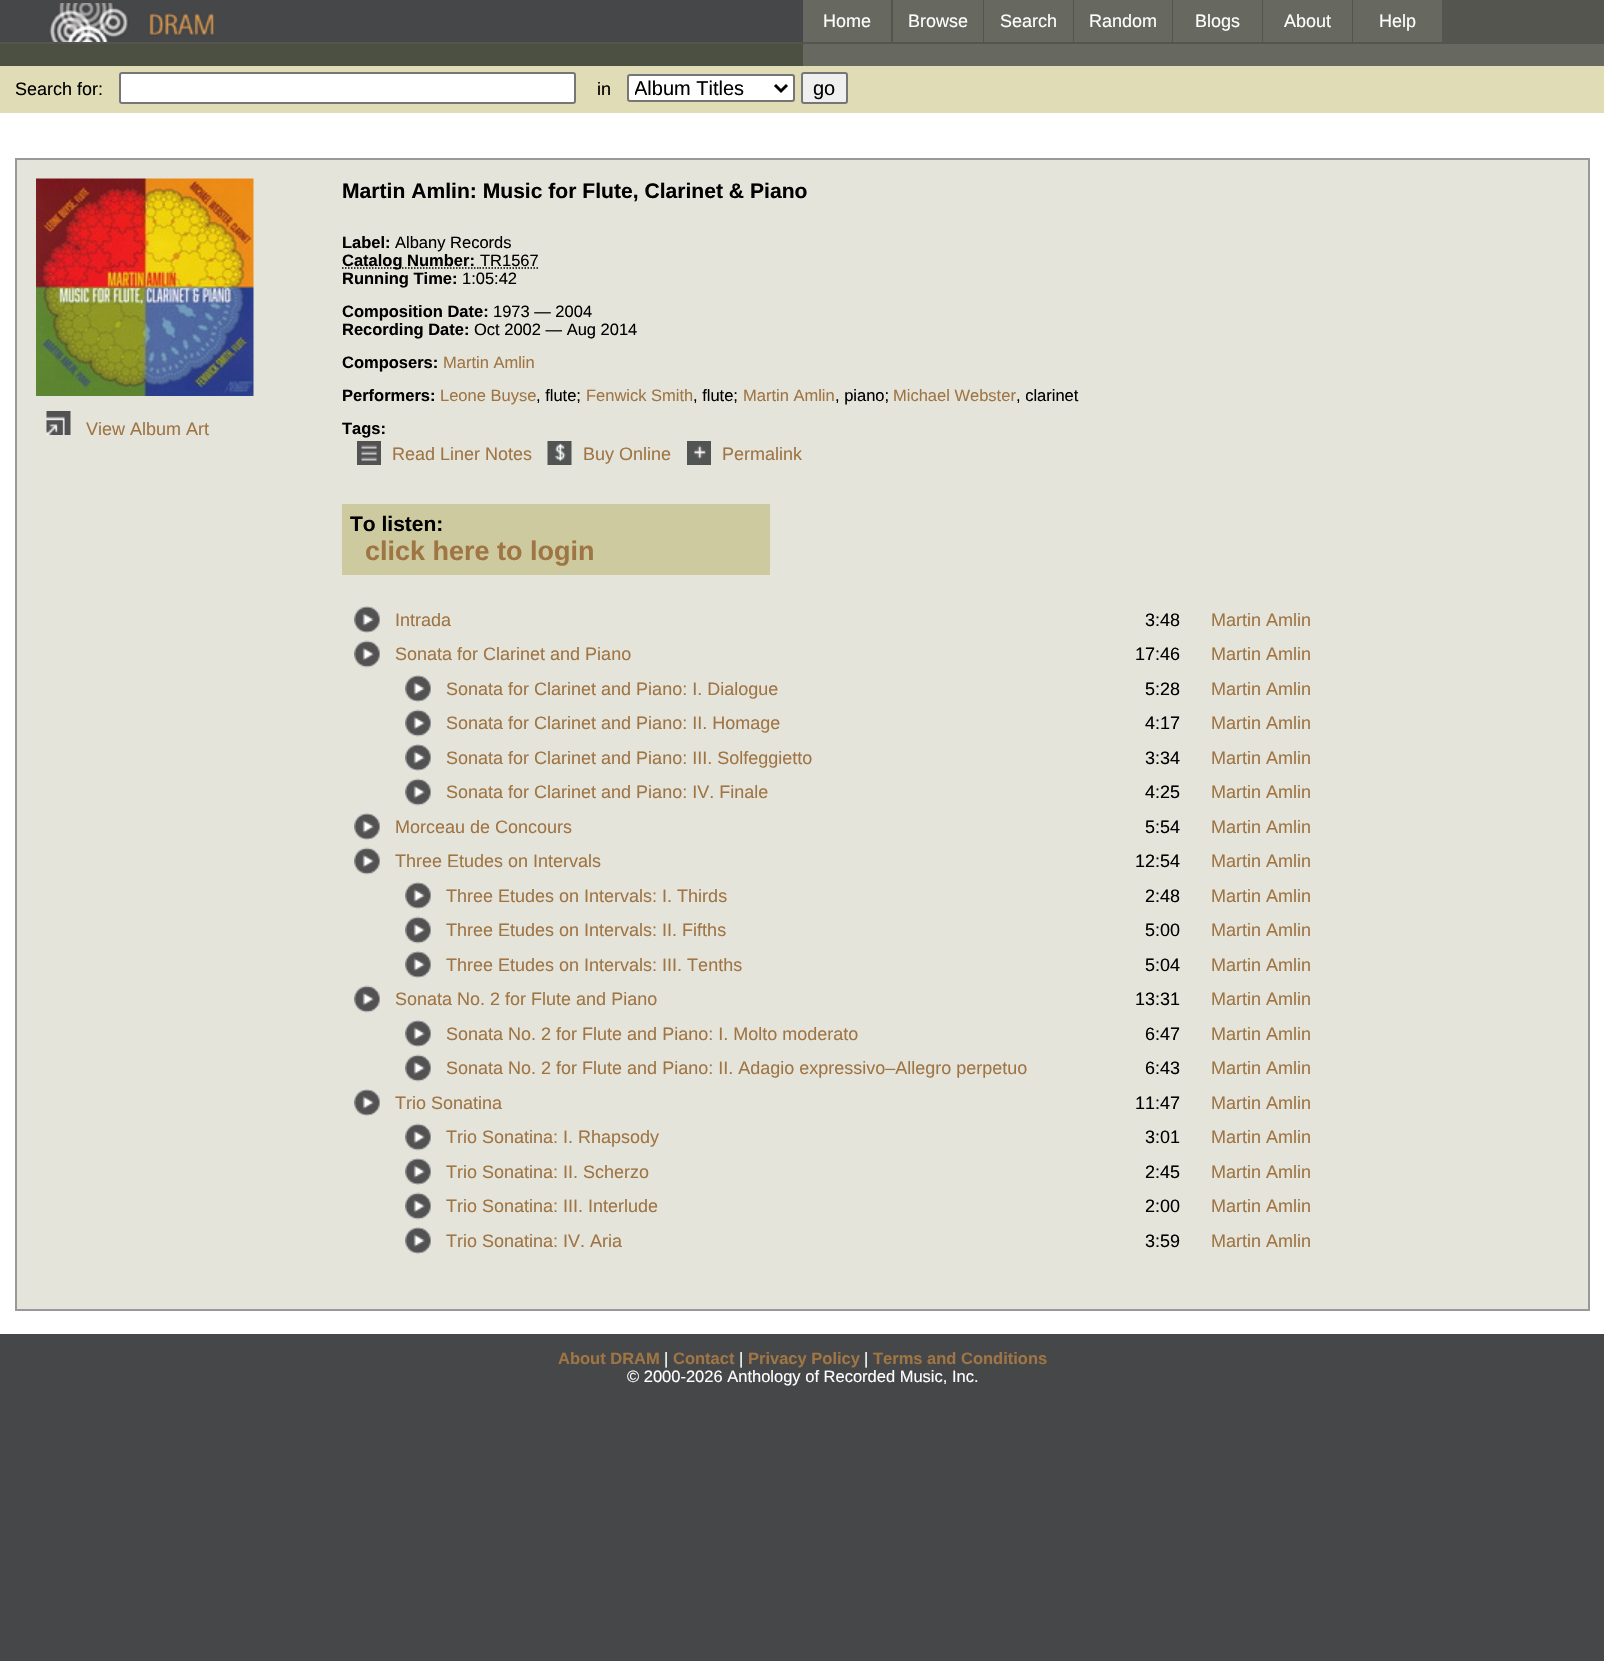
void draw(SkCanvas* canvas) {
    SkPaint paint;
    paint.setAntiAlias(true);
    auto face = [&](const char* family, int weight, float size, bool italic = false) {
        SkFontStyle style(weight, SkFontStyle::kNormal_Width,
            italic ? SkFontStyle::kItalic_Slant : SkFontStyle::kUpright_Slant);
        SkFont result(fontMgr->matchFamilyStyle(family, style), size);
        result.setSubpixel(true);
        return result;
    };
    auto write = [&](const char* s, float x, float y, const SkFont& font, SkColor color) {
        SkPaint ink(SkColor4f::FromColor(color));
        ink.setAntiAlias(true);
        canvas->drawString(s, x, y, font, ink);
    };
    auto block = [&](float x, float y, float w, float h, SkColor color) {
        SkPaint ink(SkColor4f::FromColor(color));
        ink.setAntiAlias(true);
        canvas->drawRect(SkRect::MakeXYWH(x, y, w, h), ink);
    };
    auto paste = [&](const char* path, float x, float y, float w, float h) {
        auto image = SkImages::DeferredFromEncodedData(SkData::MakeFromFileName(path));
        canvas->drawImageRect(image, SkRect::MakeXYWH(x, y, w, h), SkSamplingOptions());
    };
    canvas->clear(SkColorSetRGB(70, 71, 73));
    paste("pic1.png", 48, 3, 166, 39);
    block(891, 0, 713, 42, SkColorSetRGB(83, 85, 78));
    block(803, 0, 88, 42, SkColorSetRGB(103, 104, 95));
    auto kFont1 = face("Liberation Sans", 400, 18);
    write("Home", 823, 27, kFont1, SK_ColorWHITE);
    block(893, 0, 90, 42, SkColorSetRGB(103, 104, 95));
    write("Browse", 908, 27, kFont1, SK_ColorWHITE);
    block(984, 0, 89, 42, SkColorSetRGB(103, 104, 95));
    write("Search", 1000, 27, kFont1, SK_ColorWHITE);
    block(1074, 0, 98, 42, SkColorSetRGB(103, 104, 95));
    write("Random", 1089, 27, kFont1, SK_ColorWHITE);
    block(1173, 0, 89, 42, SkColorSetRGB(103, 104, 95));
    write("Blogs", 1195, 27, kFont1, SK_ColorWHITE);
    block(1263, 0, 89, 42, SkColorSetRGB(103, 104, 95));
    write("About", 1284, 27, kFont1, SK_ColorWHITE);
    block(1353, 0, 89, 42, SkColorSetRGB(103, 104, 95));
    write("Help", 1379, 27, kFont1, SK_ColorWHITE);
    block(803, 44, 801, 22, SkColorSetRGB(103, 104, 95));
    block(0, 42, 1604, 2, SkColorSetRGB(83, 85, 78));
    block(0, 44, 803, 22, SkColorSetRGB(75, 80, 66));
    block(0, 66, 1604, 47, SkColorSetRGB(223, 220, 182));
    write("Search for:", 15, 95, kFont1, SK_ColorBLACK);
    paint.setColor(SK_ColorWHITE);
    canvas->drawRoundRect(SkRect::MakeXYWH(120, 73, 455, 30), 2, 2, paint);
    paint.setStyle(SkPaint::kStroke_Style);
    paint.setStrokeWidth(2);
    paint.setColor(SkColorSetRGB(118, 118, 118));
    canvas->drawRoundRect(SkRect::MakeXYWH(120, 73, 455, 30), 2, 2, paint);
    write("in", 597, 95, kFont1, SK_ColorBLACK);
    paint.setStyle(SkPaint::kFill_Style);
    paint.setColor(SK_ColorWHITE);
    canvas->drawRoundRect(SkRect::MakeXYWH(628, 75, 166, 26), 2, 2, paint);
    paint.setStyle(SkPaint::kStroke_Style);
    paint.setColor(SkColorSetRGB(118, 118, 118));
    canvas->drawRoundRect(SkRect::MakeXYWH(628, 75, 166, 26), 2, 2, paint);
    paint.setStrokeWidth(3);
    paint.setColor(SK_ColorBLACK);
    canvas->drawPath(SkPathBuilder().moveTo(775, 85).lineTo(781, 91).lineTo(787, 85).detach(), paint);
    canvas->save();
    canvas->clipRect(SkRect::MakeXYWH(635, 75, 135, 26));
    auto kFont2 = face("Liberation Sans", 400, 20);
    write("Album Titles", 634, 95, kFont2, SK_ColorBLACK);
    canvas->restore();
    paint.setStyle(SkPaint::kFill_Style);
    paint.setColor(SkColorSetRGB(239, 239, 239));
    canvas->drawRoundRect(SkRect::MakeXYWH(802, 73, 45, 30), 2, 2, paint);
    paint.setStyle(SkPaint::kStroke_Style);
    paint.setStrokeWidth(2);
    paint.setColor(SkColorSetRGB(118, 118, 118));
    canvas->drawRoundRect(SkRect::MakeXYWH(802, 73, 45, 30), 2, 2, paint);
    write("go", 813, 95, kFont2, SK_ColorBLACK);
    block(0, 113, 1604, 1221, SK_ColorWHITE);
    paint.setStyle(SkPaint::kFill_Style);
    paint.setColor(SkColorSetRGB(229, 228, 219));
    canvas->drawRect(SkRect::MakeXYWH(16, 159, 1573, 1151), paint);
    paint.setStyle(SkPaint::kStroke_Style);
    paint.setColor(SkColorSetRGB(153, 153, 153));
    canvas->drawRect(SkRect::MakeXYWH(16, 159, 1573, 1151), paint);
    paste("pic2.png", 36, 178, 218, 218);
    paste("pic3.png", 46, 411, 25, 24);
    write("View Album Art", 86, 435, kFont1, SkColorSetRGB(159, 117, 68));
    auto kFont3 = face("Liberation Sans", 700, 21.1f);
    write("Martin Amlin: Music for Flute, Clarinet & Piano", 342, 198, kFont3, SK_ColorBLACK);
    auto kFont4 = face("Liberation Sans", 700, 16.5f);
    write("Label:", 342, 248, kFont4, SK_ColorBLACK);
    auto kFont5 = face("Liberation Sans", 400, 16.5f);
    write("Albany Records", 395, 248, kFont5, SK_ColorBLACK);
    paint.setStrokeWidth(1.5f);
    paint.setColor(SK_ColorBLACK);
    paint.setPathEffect(SkDashPathEffect::Make({{1.5f, 1.5f}}, 0));
    canvas->drawPath(SkPathBuilder().moveTo(342, 268).lineTo(479.5f, 268).detach(), paint);
    paint.setPathEffect(nullptr);
    write("Catalog Number:", 342, 266, kFont4, SK_ColorBLACK);
    write("TR1567", 480, 266, kFont5, SK_ColorBLACK);
    paint.setPathEffect(SkDashPathEffect::Make({{1.5f, 1.5f}}, 0));
    canvas->drawPath(SkPathBuilder().moveTo(479.5f, 268).lineTo(538, 268).detach(), paint);
    paint.setPathEffect(nullptr);
    write("Running Time:", 342, 284, kFont4, SK_ColorBLACK);
    write("1:05:42", 462, 284, kFont5, SK_ColorBLACK);
    write("Composition Date:", 342, 317, kFont4, SK_ColorBLACK);
    write("1973 — 2004", 493, 317, kFont5, SK_ColorBLACK);
    write("Recording Date:", 342, 335, kFont4, SK_ColorBLACK);
    write("Oct 2002 — Aug 2014", 474, 335, kFont5, SK_ColorBLACK);
    write("Composers:", 342, 368, kFont4, SK_ColorBLACK);
    write("Martin Amlin", 443, 368, kFont5, SkColorSetRGB(159, 117, 68));
    write("Performers:", 342, 401, kFont4, SK_ColorBLACK);
    write("Leone Buyse", 440, 401, kFont5, SkColorSetRGB(159, 117, 68));
    write(", flute;", 536, 401, kFont5, SK_ColorBLACK);
    write("Fenwick Smith", 586, 401, kFont5, SkColorSetRGB(159, 117, 68));
    write(", flute;", 693, 401, kFont5, SK_ColorBLACK);
    write("Martin Amlin", 743, 401, kFont5, SkColorSetRGB(159, 117, 68));
    write(", piano;", 835, 401, kFont5, SK_ColorBLACK);
    write("Michael Webster", 893, 401, kFont5, SkColorSetRGB(159, 117, 68));
    write(", clarinet", 1016, 401, kFont5, SK_ColorBLACK);
    write("Tags:", 342, 434, kFont4, SK_ColorBLACK);
    paste("pic4.png", 357, 441, 24, 24);
    write("Read Liner Notes", 392, 460, kFont1, SkColorSetRGB(159, 117, 68));
    paste("pic5.png", 547, 441, 25, 24);
    write("Buy Online", 583, 460, kFont1, SkColorSetRGB(159, 117, 68));
    paste("pic6.png", 687, 441, 24, 24);
    write("Permalink", 722, 460, kFont1, SkColorSetRGB(159, 117, 68));
    block(342, 504, 428, 71, SkColorSetRGB(204, 202, 158));
    auto kFont6 = face("Liberation Sans", 700, 21);
    write("To listen:", 350, 531, kFont6, SK_ColorBLACK);
    auto kFont7 = face("Liberation Sans", 700, 27);
    write("click here to login", 365, 560, kFont7, SkColorSetRGB(159, 117, 68));
    paste("pic7.png", 354, 606, 26, 27);
    write("Intrada", 395, 626, kFont1, SkColorSetRGB(159, 117, 68));
    write("3:48", 1145, 626, kFont1, SK_ColorBLACK);
    write("Martin Amlin", 1211, 626, kFont1, SkColorSetRGB(159, 117, 68));
    paste("pic8.png", 354, 640, 26, 28);
    write("Sonata for Clarinet and Piano", 395, 660, kFont1, SkColorSetRGB(159, 117, 68));
    write("17:46", 1135, 660, kFont1, SK_ColorBLACK);
    write("Martin Amlin", 1211, 660, kFont1, SkColorSetRGB(159, 117, 68));
    paste("pic7.png", 405, 675, 26, 27);
    write("Sonata for Clarinet and Piano: I. Dialogue", 446, 695, kFont1, SkColorSetRGB(159, 117, 68));
    write("5:28", 1145, 695, kFont1, SK_ColorBLACK);
    write("Martin Amlin", 1211, 695, kFont1, SkColorSetRGB(159, 117, 68));
    paste("pic8.png", 405, 709, 26, 28);
    write("Sonata for Clarinet and Piano: II. Homage", 446, 729, kFont1, SkColorSetRGB(159, 117, 68));
    write("4:17", 1145, 729, kFont1, SK_ColorBLACK);
    write("Martin Amlin", 1211, 729, kFont1, SkColorSetRGB(159, 117, 68));
    paste("pic7.png", 405, 744, 26, 27);
    write("Sonata for Clarinet and Piano: III. Solfeggietto", 446, 764, kFont1, SkColorSetRGB(159, 117, 68));
    write("3:34", 1145, 764, kFont1, SK_ColorBLACK);
    write("Martin Amlin", 1211, 764, kFont1, SkColorSetRGB(159, 117, 68));
    paste("pic8.png", 405, 778, 26, 28);
    write("Sonata for Clarinet and Piano: IV. Finale", 446, 798, kFont1, SkColorSetRGB(159, 117, 68));
    write("4:25", 1145, 798, kFont1, SK_ColorBLACK);
    write("Martin Amlin", 1211, 798, kFont1, SkColorSetRGB(159, 117, 68));
    paste("pic7.png", 354, 813, 26, 27);
    write("Morceau de Concours", 395, 833, kFont1, SkColorSetRGB(159, 117, 68));
    write("5:54", 1145, 833, kFont1, SK_ColorBLACK);
    write("Martin Amlin", 1211, 833, kFont1, SkColorSetRGB(159, 117, 68));
    paste("pic8.png", 354, 847, 26, 28);
    write("Three Etudes on Intervals", 395, 867, kFont1, SkColorSetRGB(159, 117, 68));
    write("12:54", 1135, 867, kFont1, SK_ColorBLACK);
    write("Martin Amlin", 1211, 867, kFont1, SkColorSetRGB(159, 117, 68));
    paste("pic7.png", 405, 882, 26, 27);
    write("Three Etudes on Intervals: I. Thirds", 446, 902, kFont1, SkColorSetRGB(159, 117, 68));
    write("2:48", 1145, 902, kFont1, SK_ColorBLACK);
    write("Martin Amlin", 1211, 902, kFont1, SkColorSetRGB(159, 117, 68));
    paste("pic8.png", 405, 916, 26, 28);
    write("Three Etudes on Intervals: II. Fifths", 446, 936, kFont1, SkColorSetRGB(159, 117, 68));
    write("5:00", 1145, 936, kFont1, SK_ColorBLACK);
    write("Martin Amlin", 1211, 936, kFont1, SkColorSetRGB(159, 117, 68));
    paste("pic7.png", 405, 951, 26, 27);
    write("Three Etudes on Intervals: III. Tenths", 446, 971, kFont1, SkColorSetRGB(159, 117, 68));
    write("5:04", 1145, 971, kFont1, SK_ColorBLACK);
    write("Martin Amlin", 1211, 971, kFont1, SkColorSetRGB(159, 117, 68));
    paste("pic8.png", 354, 985, 26, 28);
    write("Sonata No. 2 for Flute and Piano", 395, 1005, kFont1, SkColorSetRGB(159, 117, 68));
    write("13:31", 1135, 1005, kFont1, SK_ColorBLACK);
    write("Martin Amlin", 1211, 1005, kFont1, SkColorSetRGB(159, 117, 68));
    paste("pic7.png", 405, 1020, 26, 27);
    write("Sonata No. 2 for Flute and Piano: I. Molto moderato", 446, 1040, kFont1, SkColorSetRGB(159, 117, 68));
    write("6:47", 1145, 1040, kFont1, SK_ColorBLACK);
    write("Martin Amlin", 1211, 1040, kFont1, SkColorSetRGB(159, 117, 68));
    paste("pic8.png", 405, 1054, 26, 28);
    write("Sonata No. 2 for Flute and Piano: II. Adagio expressivo–Allegro perpetuo", 446, 1074, kFont1, SkColorSetRGB(159, 117, 68));
    write("6:43", 1145, 1074, kFont1, SK_ColorBLACK);
    write("Martin Amlin", 1211, 1074, kFont1, SkColorSetRGB(159, 117, 68));
    paste("pic7.png", 354, 1089, 26, 27);
    write("Trio Sonatina", 395, 1109, kFont1, SkColorSetRGB(159, 117, 68));
    write("11:47", 1135, 1109, kFont1, SK_ColorBLACK);
    write("Martin Amlin", 1211, 1109, kFont1, SkColorSetRGB(159, 117, 68));
    paste("pic8.png", 405, 1123, 26, 28);
    write("Trio Sonatina: I. Rhapsody", 446, 1143, kFont1, SkColorSetRGB(159, 117, 68));
    write("3:01", 1145, 1143, kFont1, SK_ColorBLACK);
    write("Martin Amlin", 1211, 1143, kFont1, SkColorSetRGB(159, 117, 68));
    paste("pic7.png", 405, 1158, 26, 27);
    write("Trio Sonatina: II. Scherzo", 446, 1178, kFont1, SkColorSetRGB(159, 117, 68));
    write("2:45", 1145, 1178, kFont1, SK_ColorBLACK);
    write("Martin Amlin", 1211, 1178, kFont1, SkColorSetRGB(159, 117, 68));
    paste("pic8.png", 405, 1192, 26, 28);
    write("Trio Sonatina: III. Interlude", 446, 1212, kFont1, SkColorSetRGB(159, 117, 68));
    write("2:00", 1145, 1212, kFont1, SK_ColorBLACK);
    write("Martin Amlin", 1211, 1212, kFont1, SkColorSetRGB(159, 117, 68));
    paste("pic7.png", 405, 1227, 26, 27);
    write("Trio Sonatina: IV. Aria", 446, 1247, kFont1, SkColorSetRGB(159, 117, 68));
    write("3:59", 1145, 1247, kFont1, SK_ColorBLACK);
    write("Martin Amlin", 1211, 1247, kFont1, SkColorSetRGB(159, 117, 68));
    write("About DRAM", 558, 1364, kFont4, SkColorSetRGB(159, 117, 68));
    write("|", 664, 1364, kFont5, SK_ColorWHITE);
    write("Contact", 673, 1364, kFont4, SkColorSetRGB(159, 117, 68));
    write("|", 739, 1364, kFont5, SK_ColorWHITE);
    write("Privacy Policy", 748, 1364, kFont4, SkColorSetRGB(159, 117, 68));
    write("|", 864, 1364, kFont5, SK_ColorWHITE);
    write("Terms and Conditions", 873, 1364, kFont4, SkColorSetRGB(159, 117, 68));
    write("© 2000-2026 Anthology of Recorded Music, Inc.", 627, 1382, kFont5, SK_ColorWHITE);
}
